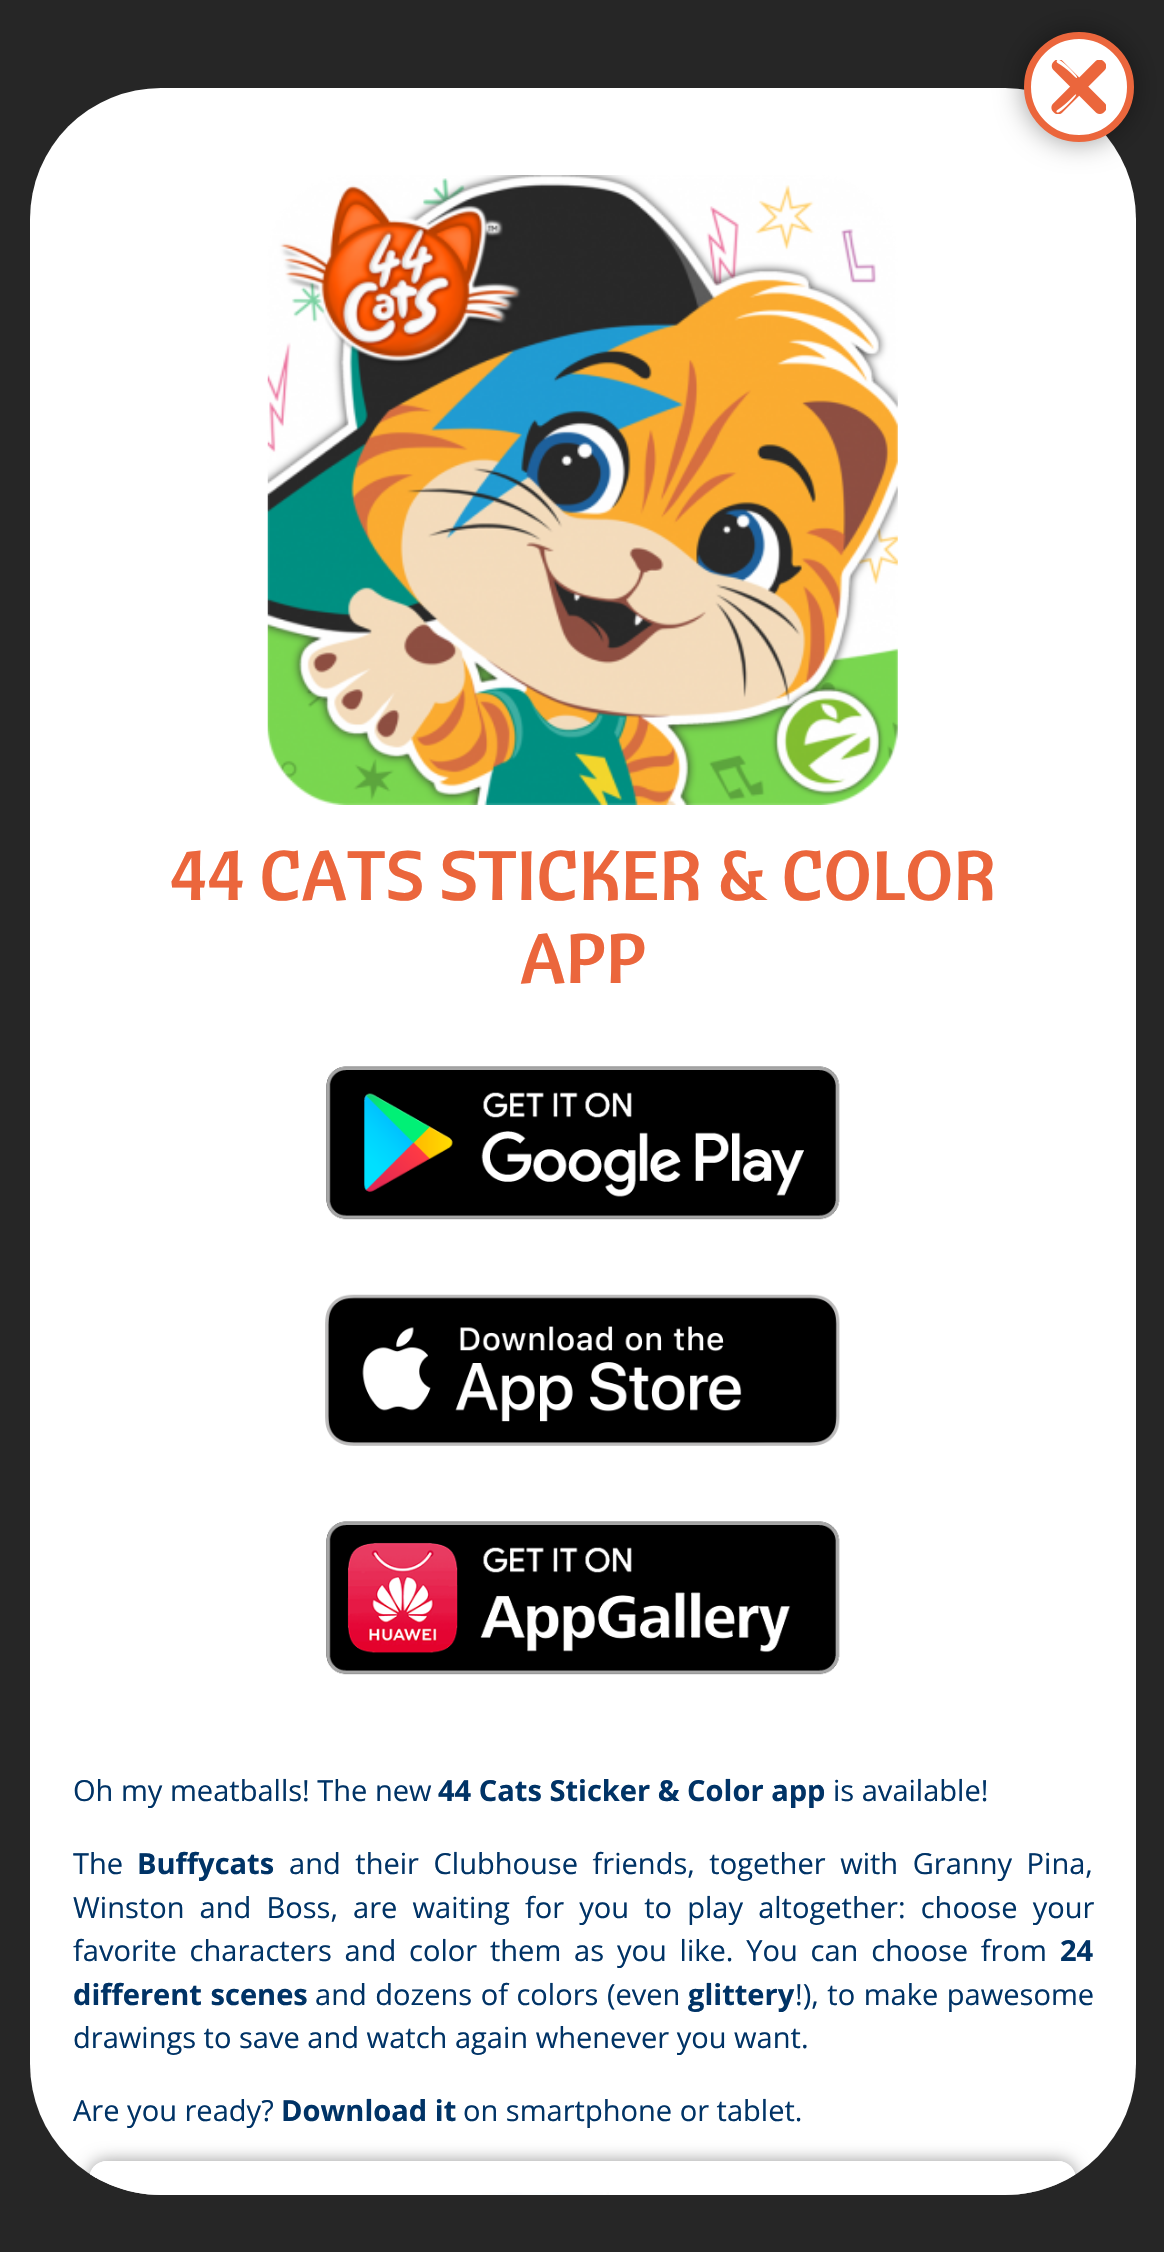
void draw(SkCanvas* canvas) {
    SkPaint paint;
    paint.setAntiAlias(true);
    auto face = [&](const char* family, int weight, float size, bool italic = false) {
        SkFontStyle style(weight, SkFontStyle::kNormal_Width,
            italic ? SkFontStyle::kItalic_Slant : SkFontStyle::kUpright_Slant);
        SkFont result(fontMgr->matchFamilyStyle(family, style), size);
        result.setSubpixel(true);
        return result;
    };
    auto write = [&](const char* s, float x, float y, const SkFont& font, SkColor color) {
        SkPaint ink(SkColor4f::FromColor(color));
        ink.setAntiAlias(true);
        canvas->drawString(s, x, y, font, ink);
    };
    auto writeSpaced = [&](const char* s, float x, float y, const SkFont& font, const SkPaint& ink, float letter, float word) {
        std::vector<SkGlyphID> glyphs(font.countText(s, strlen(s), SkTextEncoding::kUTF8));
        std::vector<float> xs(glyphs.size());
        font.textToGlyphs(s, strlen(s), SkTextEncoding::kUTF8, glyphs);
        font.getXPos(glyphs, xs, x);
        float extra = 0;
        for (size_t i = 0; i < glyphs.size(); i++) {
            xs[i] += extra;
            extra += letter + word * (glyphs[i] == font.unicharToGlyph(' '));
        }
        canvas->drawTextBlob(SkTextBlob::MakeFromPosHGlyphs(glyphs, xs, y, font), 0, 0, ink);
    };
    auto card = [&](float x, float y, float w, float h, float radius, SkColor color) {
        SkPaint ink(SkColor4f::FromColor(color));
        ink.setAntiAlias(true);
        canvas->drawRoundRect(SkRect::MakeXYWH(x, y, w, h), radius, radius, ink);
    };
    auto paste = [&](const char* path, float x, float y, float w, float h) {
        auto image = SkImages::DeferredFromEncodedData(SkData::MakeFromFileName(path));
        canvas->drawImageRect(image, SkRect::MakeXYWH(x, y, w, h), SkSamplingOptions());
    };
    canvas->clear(SkColorSetRGB(38, 38, 38));
    card(30, 88, 1106, 2107, 131, SK_ColorWHITE);
    paint.setColor(SkColorSetARGB(102, 0, 0, 0));
    paint.setMaskFilter(SkMaskFilter::MakeBlur(kNormal_SkBlurStyle, 14));
    canvas->drawRoundRect(SkRect::MakeXYWH(1024, 32, 110, 110), 55, 55, paint);
    paint.setMaskFilter(nullptr);
    paint.setColor(SK_ColorWHITE);
    canvas->drawCircle(1079, 87, 51.5f, paint);
    paint.setStyle(SkPaint::kStroke_Style);
    paint.setStrokeWidth(7);
    paint.setColor(SkColorSetRGB(235, 102, 60));
    canvas->drawCircle(1079, 87, 51.5f, paint);
    paste("pic1.png", 1051, 60, 55, 54);
    paste("pic2.png", 267, 175, 631, 630);
    auto kFont1 = face("Cantora One", 400, 69.75f);
    write("44 CATS STICKER & COLOR", 170, 900, kFont1, SkColorSetRGB(235, 102, 60));
    write("APP", 520, 983, kFont1, SkColorSetRGB(235, 102, 60));
    paste("pic3.png", 326, 1066, 514, 154);
    paste("pic4.png", 325, 1294, 515, 152);
    paste("pic5.png", 326, 1521, 514, 154);
    auto kFont2 = face("Open Sans", 400, 29.05f);
    write("Oh my meatballs! The new", 73, 1801, kFont2, SkColorSetRGB(0, 51, 102));
    auto kFont3 = face("Open Sans", 700, 29.05f);
    write("44 Cats Sticker & Color app", 438, 1801, kFont3, SkColorSetRGB(0, 51, 102));
    write("is available!", 833, 1801, kFont2, SkColorSetRGB(0, 51, 102));
    write("The", 73, 1874, kFont2, SkColorSetRGB(0, 51, 102));
    write("Buffycats", 137, 1874, kFont3, SkColorSetRGB(0, 51, 102));
    paint.setStyle(SkPaint::kFill_Style);
    paint.setColor(SkColorSetRGB(0, 51, 102));
    writeSpaced("and their Clubhouse friends, together with Granny Pina,", 289, 1874, kFont2, paint, 0, 7);
    writeSpaced("Winston and Boss, are waiting for you to play altogether: choose your", 73, 1918, kFont2, paint, 0, 7.6f);
    writeSpaced("favorite characters and color them as you like. You can choose from", 73, 1961, kFont2, paint, 0, 5.25f);
    write("24", 1060, 1961, kFont3, SkColorSetRGB(0, 51, 102));
    writeSpaced("different scenes", 73, 2005, kFont3, paint, 0, 1);
    writeSpaced("and dozens of colors (even", 315, 2005, kFont2, paint, 0, 1);
    write("glittery", 688, 2005, kFont3, SkColorSetRGB(0, 51, 102));
    writeSpaced("!), to make pawesome", 795, 2005, kFont2, paint, 0, 1);
    write("drawings to save and watch again whenever you want.", 73, 2048, kFont2, SkColorSetRGB(0, 51, 102));
    write("Are you ready?", 73, 2121, kFont2, SkColorSetRGB(0, 51, 102));
    write("Download it", 281, 2121, kFont3, SkColorSetRGB(0, 51, 102));
    write("on smartphone or tablet.", 463, 2121, kFont2, SkColorSetRGB(0, 51, 102));
    canvas->save();
    canvas->clipPath(SkPathBuilder().moveTo(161, 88).lineTo(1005, 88).cubicTo(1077.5f, 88, 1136, 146.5f, 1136, 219).lineTo(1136, 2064).cubicTo(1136, 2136.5f, 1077.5f, 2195, 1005, 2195).lineTo(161, 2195).cubicTo(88.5f, 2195, 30, 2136.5f, 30, 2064).lineTo(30, 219).cubicTo(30, 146.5f, 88.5f, 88, 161, 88).close().detach(), true);
    paint.setColor(SkColorSetARGB(102, 0, 0, 0));
    paint.setMaskFilter(SkMaskFilter::MakeBlur(kNormal_SkBlurStyle, 8.5f));
    canvas->drawRoundRect(SkRect::MakeXYWH(89, 2161, 987, 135), 18, 18, paint);
    paint.setMaskFilter(nullptr);
    canvas->restore();
    canvas->save();
    canvas->clipPath(SkPathBuilder().moveTo(161, 88).lineTo(1005, 88).cubicTo(1077.5f, 88, 1136, 146.5f, 1136, 219).lineTo(1136, 2064).cubicTo(1136, 2136.5f, 1077.5f, 2195, 1005, 2195).lineTo(161, 2195).cubicTo(88.5f, 2195, 30, 2136.5f, 30, 2064).lineTo(30, 219).cubicTo(30, 146.5f, 88.5f, 88, 161, 88).close().detach(), true);
    paint.setColor(SK_ColorWHITE);
    canvas->drawPath(SkPathBuilder().moveTo(107, 2161).lineTo(1058, 2161).cubicTo(1068, 2161, 1076, 2169, 1076, 2179).lineTo(1076, 2195).lineTo(89, 2195).lineTo(89, 2179).cubicTo(89, 2169, 97, 2161, 107, 2161).close().detach(), paint);
    canvas->restore();
    canvas->drawPath(SkPathBuilder().moveTo(107, 2161).cubicTo(99, 2161, 92, 2166, 90, 2174).lineTo(96, 2178).cubicTo(97, 2172, 101, 2168, 107, 2168).lineTo(1058, 2168).cubicTo(1064, 2168, 1069, 2173, 1069, 2178).lineTo(1075, 2174).cubicTo(1073, 2167, 1066, 2161, 1058, 2161).close().detach(), paint);
    paste("pic6.png", 97, 2178, 512, 17);
}
